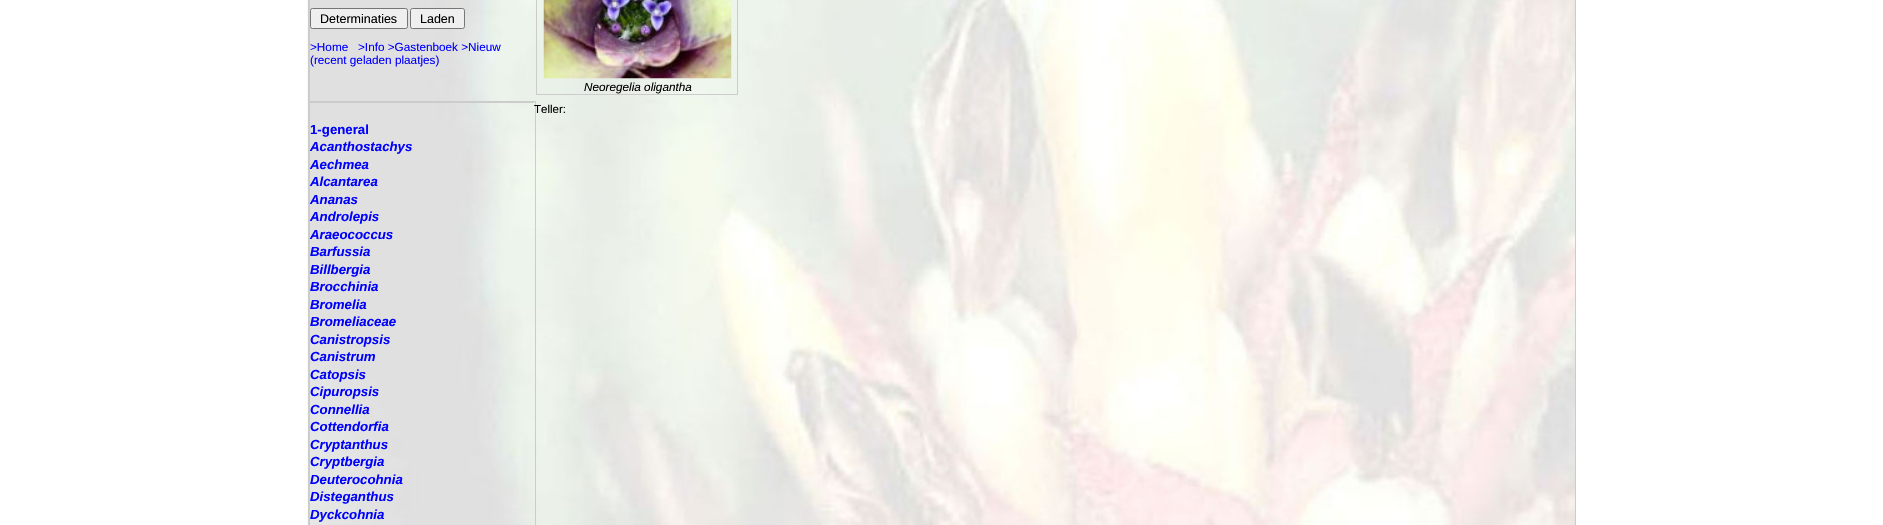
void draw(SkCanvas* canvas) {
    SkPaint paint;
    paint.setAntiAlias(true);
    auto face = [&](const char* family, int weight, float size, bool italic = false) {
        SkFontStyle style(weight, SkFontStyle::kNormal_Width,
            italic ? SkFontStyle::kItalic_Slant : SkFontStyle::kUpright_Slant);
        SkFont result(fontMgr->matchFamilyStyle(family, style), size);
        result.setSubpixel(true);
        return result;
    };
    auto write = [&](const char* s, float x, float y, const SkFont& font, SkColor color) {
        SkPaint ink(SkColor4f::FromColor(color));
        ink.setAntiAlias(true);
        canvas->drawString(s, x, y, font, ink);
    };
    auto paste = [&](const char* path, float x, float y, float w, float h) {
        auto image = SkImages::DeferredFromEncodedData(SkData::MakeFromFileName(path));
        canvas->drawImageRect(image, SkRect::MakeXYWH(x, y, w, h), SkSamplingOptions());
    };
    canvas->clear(SK_ColorWHITE);
    paste("pic1.png", 307, 0, 1268, 525);
    paint.setStyle(SkPaint::kStroke_Style);
    paint.setStrokeWidth(1);
    paint.setColor(SkColorSetRGB(204, 204, 204));
    canvas->drawRect(SkRect::MakeXYWH(308.5f, -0.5f, 1267, 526), paint);
    canvas->save();
    canvas->clipRect(SkRect::MakeXYWH(309, 0, 225, 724));
    canvas->drawRect(SkRect::MakeXYWH(309.5f, -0.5f, 226, 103), paint);
    canvas->restore();
    paint.setStyle(SkPaint::kFill_Style);
    paint.setColor(SkColorSetRGB(239, 239, 239));
    canvas->drawRoundRect(SkRect::MakeXYWH(310.5f, 8.5f, 97, 20), 2, 2, paint);
    paint.setStyle(SkPaint::kStroke_Style);
    paint.setColor(SkColorSetRGB(118, 118, 118));
    canvas->drawRoundRect(SkRect::MakeXYWH(310.5f, 8.5f, 97, 20), 2, 2, paint);
    auto kFont1 = face("Liberation Sans", 400, 12.5f);
    write("Determinaties", 320, 23, kFont1, SK_ColorBLACK);
    paint.setStyle(SkPaint::kFill_Style);
    paint.setColor(SkColorSetRGB(239, 239, 239));
    canvas->drawRoundRect(SkRect::MakeXYWH(410.5f, 8.5f, 54, 20), 2, 2, paint);
    paint.setStyle(SkPaint::kStroke_Style);
    paint.setColor(SkColorSetRGB(118, 118, 118));
    canvas->drawRoundRect(SkRect::MakeXYWH(410.5f, 8.5f, 54, 20), 2, 2, paint);
    write("Laden", 420, 23, kFont1, SK_ColorBLACK);
    auto kFont2 = face("Liberation Sans", 400, 11.75f);
    write(">Home", 310, 51, kFont2, SkColorSetRGB(0, 0, 255));
    write(">Info >Gastenboek >Nieuw", 358, 51, kFont2, SkColorSetRGB(0, 0, 255));
    write("(recent geladen plaatjes)", 310, 64, kFont2, SkColorSetRGB(0, 0, 255));
    paint.setColor(SkColorSetRGB(204, 204, 204));
    canvas->drawRect(SkRect::MakeXYWH(309.5f, 101.5f, 226, 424), paint);
    auto kFont3 = face("Liberation Sans", 700, 13.25f);
    write("1-general", 310, 134, kFont3, SkColorSetRGB(0, 0, 255));
    auto kFont4 = face("Liberation Sans", 700, 13.25f, true);
    write("Acanthostachys", 310, 151, kFont4, SkColorSetRGB(0, 0, 255));
    write("Aechmea", 310, 169, kFont4, SkColorSetRGB(0, 0, 255));
    write("Alcantarea", 310, 186, kFont4, SkColorSetRGB(0, 0, 255));
    write("Ananas", 310, 204, kFont4, SkColorSetRGB(0, 0, 255));
    write("Androlepis", 310, 221, kFont4, SkColorSetRGB(0, 0, 255));
    write("Araeococcus", 310, 239, kFont4, SkColorSetRGB(0, 0, 255));
    write("Barfussia", 310, 256, kFont4, SkColorSetRGB(0, 0, 255));
    write("Billbergia", 310, 274, kFont4, SkColorSetRGB(0, 0, 255));
    write("Brocchinia", 310, 291, kFont4, SkColorSetRGB(0, 0, 255));
    write("Bromelia", 310, 309, kFont4, SkColorSetRGB(0, 0, 255));
    write("Bromeliaceae", 310, 326, kFont4, SkColorSetRGB(0, 0, 255));
    write("Canistropsis", 310, 344, kFont4, SkColorSetRGB(0, 0, 255));
    write("Canistrum", 310, 361, kFont4, SkColorSetRGB(0, 0, 255));
    write("Catopsis", 310, 379, kFont4, SkColorSetRGB(0, 0, 255));
    write("Cipuropsis", 310, 396, kFont4, SkColorSetRGB(0, 0, 255));
    write("Connellia", 310, 414, kFont4, SkColorSetRGB(0, 0, 255));
    write("Cottendorfia", 310, 431, kFont4, SkColorSetRGB(0, 0, 255));
    write("Cryptanthus", 310, 449, kFont4, SkColorSetRGB(0, 0, 255));
    write("Cryptbergia", 310, 466, kFont4, SkColorSetRGB(0, 0, 255));
    write("Deuterocohnia", 310, 484, kFont4, SkColorSetRGB(0, 0, 255));
    write("Disteganthus", 310, 501, kFont4, SkColorSetRGB(0, 0, 255));
    write("Dyckcohnia", 310, 519, kFont4, SkColorSetRGB(0, 0, 255));
    canvas->drawRect(SkRect::MakeXYWH(536.5f, -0.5f, 201, 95), paint);
    paste("pic2.png", 543, 0, 189, 79);
    auto kFont5 = face("Liberation Sans", 400, 11.75f, true);
    write("Neoregelia oligantha", 584, 91, kFont5, SK_ColorBLACK);
    auto kFont6 = face("Liberation Sans", 400, 11.5f);
    write("Teller:", 534, 113, kFont6, SK_ColorBLACK);
}
